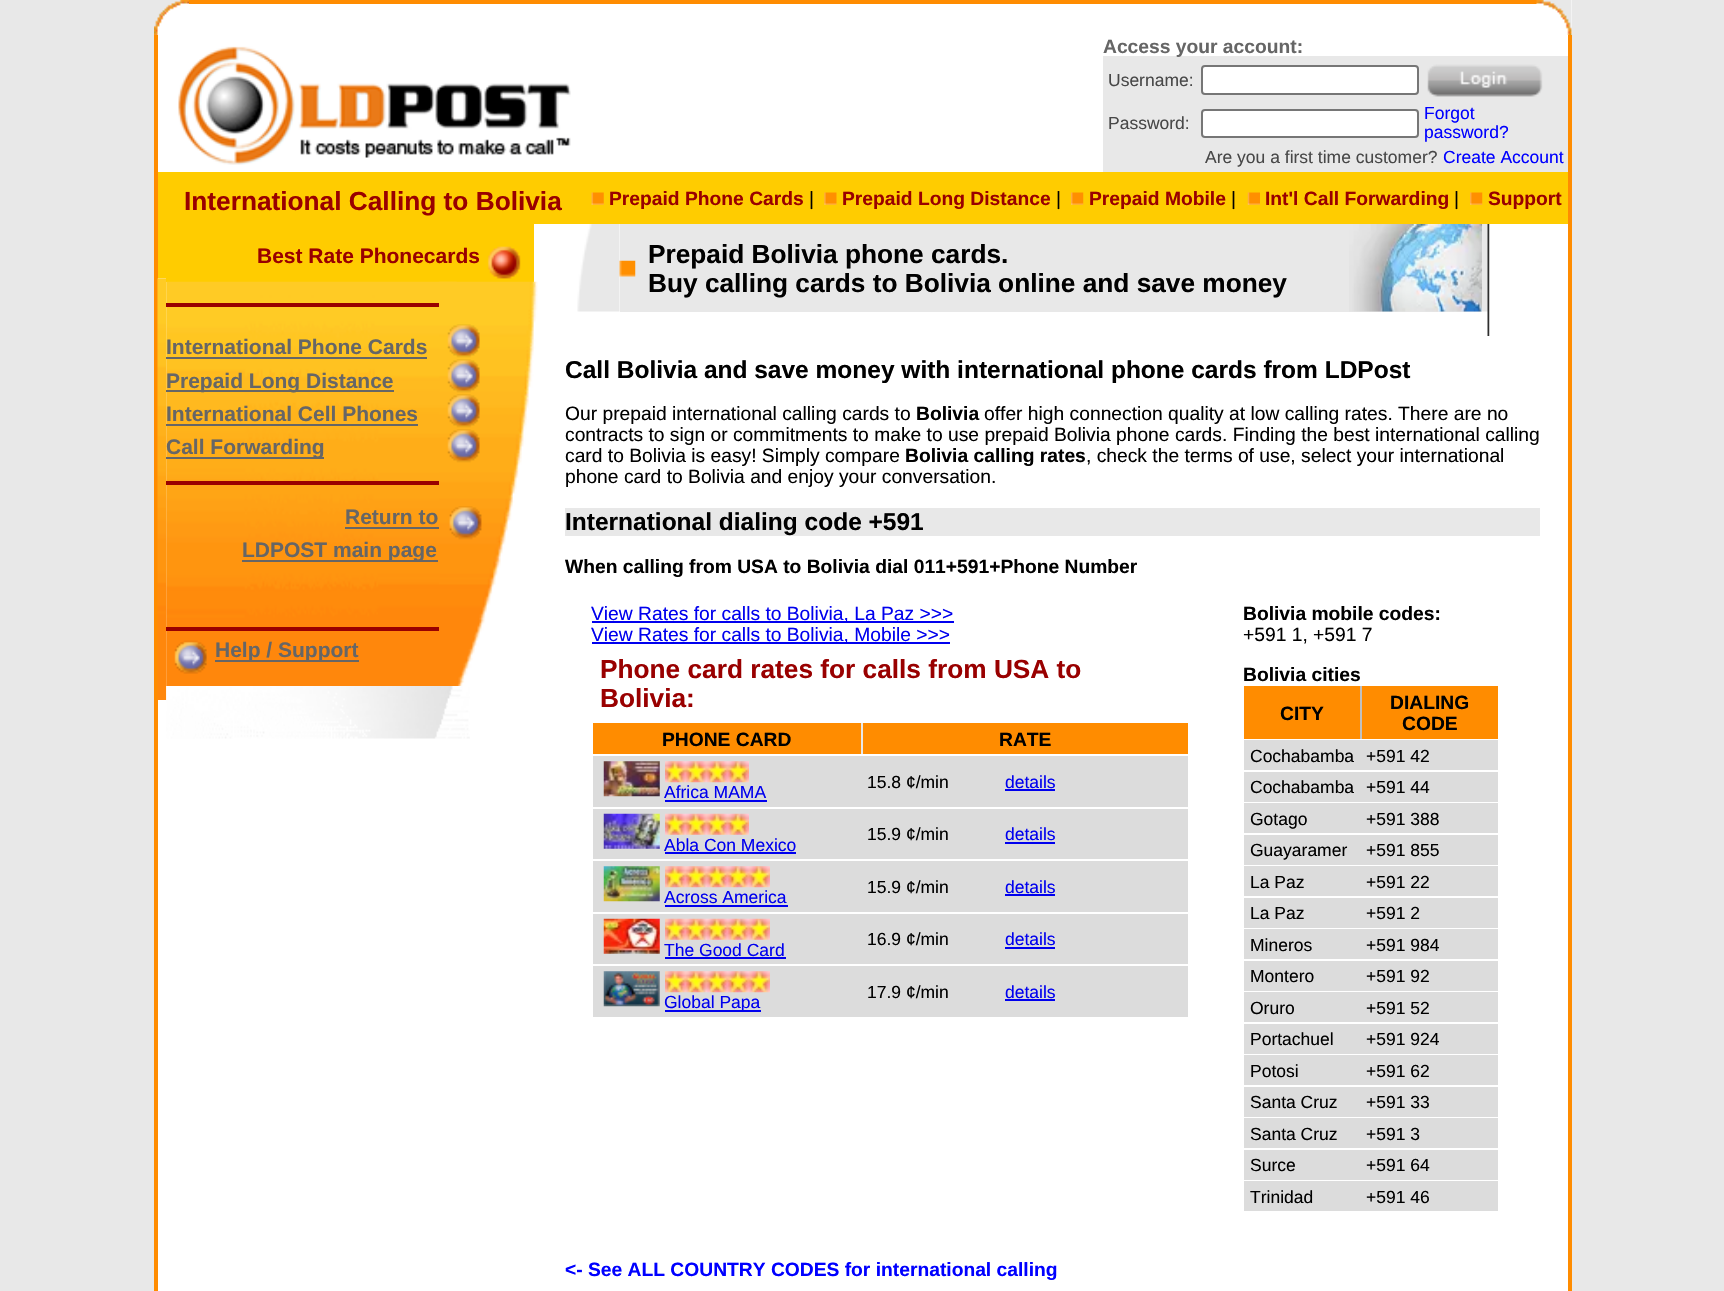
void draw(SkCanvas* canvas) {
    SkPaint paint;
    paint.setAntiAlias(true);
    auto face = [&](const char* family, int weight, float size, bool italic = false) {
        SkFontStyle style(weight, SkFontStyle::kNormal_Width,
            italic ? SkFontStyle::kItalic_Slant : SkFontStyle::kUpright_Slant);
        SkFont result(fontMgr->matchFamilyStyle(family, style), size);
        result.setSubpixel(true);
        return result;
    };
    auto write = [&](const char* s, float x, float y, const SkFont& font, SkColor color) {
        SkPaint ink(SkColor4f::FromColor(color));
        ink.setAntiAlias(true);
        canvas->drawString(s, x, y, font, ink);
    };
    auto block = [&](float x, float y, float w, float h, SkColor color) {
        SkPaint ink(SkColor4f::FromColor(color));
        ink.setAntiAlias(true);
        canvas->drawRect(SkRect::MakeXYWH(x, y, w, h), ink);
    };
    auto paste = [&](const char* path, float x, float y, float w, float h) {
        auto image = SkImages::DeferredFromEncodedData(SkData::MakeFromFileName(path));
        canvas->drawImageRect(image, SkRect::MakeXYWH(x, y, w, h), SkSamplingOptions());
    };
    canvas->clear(SkColorSetRGB(232, 232, 232));
    block(158, 0, 1414, 1291, SK_ColorWHITE);
    paste("pic1.png", 154, 0, 35, 35);
    block(189, 0, 1348, 4, SkColorSetRGB(255, 140, 0));
    paste("pic2.png", 1536, 0, 36, 35);
    block(1568, 35, 4, 1256, SkColorSetRGB(255, 140, 0));
    block(154, 35, 4, 1256, SkColorSetRGB(255, 140, 0));
    paste("pic3.png", 178, 46, 393, 119);
    block(1103, 56, 465, 116, SkColorSetRGB(232, 232, 232));
    auto kFont1 = face("Liberation Sans", 700, 19.25f);
    write("Access your account:", 1103, 53, kFont1, SkColorSetRGB(102, 102, 102));
    auto kFont2 = face("Liberation Sans", 400, 17.5f);
    write("Username:", 1108, 86, kFont2, SkColorSetRGB(72, 72, 72));
    paint.setColor(SK_ColorWHITE);
    canvas->drawRoundRect(SkRect::MakeXYWH(1202, 66, 216, 28), 3, 3, paint);
    paint.setStyle(SkPaint::kStroke_Style);
    paint.setStrokeWidth(2);
    paint.setColor(SkColorSetRGB(118, 118, 118));
    canvas->drawRoundRect(SkRect::MakeXYWH(1202, 66, 216, 28), 3, 3, paint);
    paste("pic4.png", 1427, 64, 116, 33);
    write("Password:", 1108, 129, kFont2, SkColorSetRGB(72, 72, 72));
    paint.setStyle(SkPaint::kFill_Style);
    paint.setColor(SK_ColorWHITE);
    canvas->drawRoundRect(SkRect::MakeXYWH(1202, 110, 216, 27), 3, 3, paint);
    paint.setStyle(SkPaint::kStroke_Style);
    paint.setColor(SkColorSetRGB(118, 118, 118));
    canvas->drawRoundRect(SkRect::MakeXYWH(1202, 110, 216, 27), 3, 3, paint);
    write("Forgot", 1424, 119, kFont2, SkColorSetRGB(0, 0, 255));
    write("password?", 1424, 138, kFont2, SkColorSetRGB(0, 0, 255));
    write("Are you a first time customer?", 1205, 163, kFont2, SkColorSetRGB(72, 72, 72));
    write("Create Account", 1443, 163, kFont2, SkColorSetRGB(0, 0, 255));
    block(158, 172, 1410, 52, SkColorSetRGB(255, 204, 0));
    auto kFont3 = face("Liberation Sans", 700, 26.25f);
    write("International Calling to Bolivia", 184, 210, kFont3, SkColorSetRGB(153, 0, 0));
    paste("pic5.png", 591, 192, 13, 13);
    write("Prepaid Phone Cards", 609, 205, kFont1, SkColorSetRGB(153, 0, 0));
    auto kFont4 = face("Liberation Sans", 400, 19.25f);
    write("|", 809, 205, kFont4, SK_ColorBLACK);
    paste("pic6.png", 824, 192, 13, 13);
    write("Prepaid Long Distance", 842, 205, kFont1, SkColorSetRGB(153, 0, 0));
    write("|", 1056, 205, kFont4, SK_ColorBLACK);
    paste("pic7.png", 1071, 192, 13, 13);
    write("Prepaid Mobile", 1089, 205, kFont1, SkColorSetRGB(153, 0, 0));
    write("|", 1231, 205, kFont4, SK_ColorBLACK);
    paste("pic8.png", 1247, 192, 13, 13);
    write("Int'l Call Forwarding", 1265, 205, kFont1, SkColorSetRGB(153, 0, 0));
    write("|", 1454, 205, kFont4, SK_ColorBLACK);
    paste("pic7.png", 1470, 192, 13, 13);
    write("Support", 1488, 205, kFont1, SkColorSetRGB(153, 0, 0));
    block(158, 224, 8, 54, SkColorSetRGB(255, 204, 0));
    paste("pic9.png", 157, 278, 10, 422);
    block(166, 224, 368, 58, SkColorSetRGB(255, 204, 0));
    auto kFont5 = face("Liberation Sans", 700, 21);
    write("Best Rate Phonecards", 257, 263, kFont5, SkColorSetRGB(153, 0, 0));
    paste("pic10.png", 487, 246, 34, 33);
    paste("pic11.png", 166, 281, 291, 405);
    block(166, 303, 273, 4, SkColorSetRGB(153, 0, 0));
    paste("pic12.png", 439, 281, 99, 405);
    paste("pic13.png", 447, 324, 33, 34);
    paste("pic14.png", 447, 359, 33, 34);
    paste("pic15.png", 447, 394, 33, 34);
    paste("pic16.png", 447, 429, 33, 34);
    paste("pic17.png", 449, 506, 33, 34);
    write("International Phone Cards", 166, 354, kFont5, SkColorSetRGB(102, 102, 102));
    block(166, 357, 261, 2, SkColorSetRGB(102, 102, 102));
    block(166, 390, 228, 2, SkColorSetRGB(102, 102, 102));
    write("Prepaid Long Distance", 166, 388, kFont5, SkColorSetRGB(102, 102, 102));
    write("International Cell Phones", 166, 421, kFont5, SkColorSetRGB(102, 102, 102));
    block(166, 424, 252, 2, SkColorSetRGB(102, 102, 102));
    block(166, 457, 158, 2, SkColorSetRGB(102, 102, 102));
    write("Call Forwarding", 166, 454, kFont5, SkColorSetRGB(102, 102, 102));
    block(166, 481, 273, 4, SkColorSetRGB(153, 0, 0));
    write("Return to", 345, 524, kFont5, SkColorSetRGB(102, 102, 102));
    block(345, 527, 94, 2, SkColorSetRGB(102, 102, 102));
    block(242, 560, 196, 2, SkColorSetRGB(102, 102, 102));
    write("LDPOST main page", 242, 557, kFont5, SkColorSetRGB(102, 102, 102));
    block(166, 627, 273, 4, SkColorSetRGB(153, 0, 0));
    paste("pic18.png", 174, 640, 33, 34);
    block(215, 660, 144, 2, SkColorSetRGB(102, 102, 102));
    write("Help / Support", 215, 657, kFont5, SkColorSetRGB(102, 102, 102));
    paste("pic19.png", 166, 686, 304, 53);
    paste("pic20.png", 577, 224, 43, 88);
    block(620, 224, 862, 88, SkColorSetRGB(232, 232, 232));
    paste("pic21.png", 619, 260, 17, 17);
    paste("pic22.png", 1349, 224, 134, 88);
    write("Prepaid Bolivia phone cards.", 648, 263, kFont3, SK_ColorBLACK);
    write("Buy calling cards to Bolivia online and save money", 648, 292, kFont3, SK_ColorBLACK);
    paste("pic23.png", 1482, 224, 8, 112);
    auto kFont6 = face("Liberation Sans", 700, 24.5f);
    write("Call Bolivia and save money with international phone cards from LDPost", 565, 378, kFont6, SK_ColorBLACK);
    write("Our prepaid international calling cards to", 565, 420, kFont4, SK_ColorBLACK);
    write("Bolivia", 916, 420, kFont1, SK_ColorBLACK);
    write("offer high connection quality at low calling rates. There are no", 984, 420, kFont4, SK_ColorBLACK);
    write("contracts to sign or commitments to make to use prepaid Bolivia phone cards. Finding the best international calling", 565, 441, kFont4, SK_ColorBLACK);
    write("card to Bolivia is easy! Simply compare", 565, 462, kFont4, SK_ColorBLACK);
    write("Bolivia calling rates", 905, 462, kFont1, SK_ColorBLACK);
    write(", check the terms of use, select your international", 1086, 462, kFont4, SK_ColorBLACK);
    write("phone card to Bolivia and enjoy your conversation.", 565, 483, kFont4, SK_ColorBLACK);
    block(565, 508, 975, 28, SkColorSetRGB(232, 232, 232));
    write("International dialing code +591", 565, 530, kFont6, SK_ColorBLACK);
    write("When calling from USA to Bolivia dial 011+591+Phone Number", 565, 573, kFont1, SK_ColorBLACK);
    block(592, 621, 362, 2, SkColorSetRGB(0, 0, 238));
    write("View Rates for calls to Bolivia, La Paz >>>", 591, 620, kFont4, SkColorSetRGB(0, 0, 238));
    block(592, 642, 358, 2, SkColorSetRGB(0, 0, 238));
    write("View Rates for calls to Bolivia, Mobile >>>", 591, 641, kFont4, SkColorSetRGB(0, 0, 238));
    write("Phone card rates for calls from USA to", 600, 678, kFont3, SkColorSetRGB(153, 0, 0));
    write("Bolivia:", 600, 707, kFont3, SkColorSetRGB(153, 0, 0));
    block(861, 723, 2, 31, SkColorSetRGB(232, 232, 232));
    block(593, 723, 268, 31, SkColorSetRGB(255, 140, 0));
    write("PHONE CARD", 662, 746, kFont1, SK_ColorBLACK);
    block(863, 723, 325, 31, SkColorSetRGB(255, 140, 0));
    write("RATE", 999, 746, kFont1, SK_ColorBLACK);
    block(593, 756, 595, 51, SkColorSetRGB(220, 220, 220));
    write("15.8 ¢/min", 867, 788, kFont2, SK_ColorBLACK);
    write("details", 1005, 788, kFont2, SkColorSetRGB(0, 0, 238));
    block(1005, 789, 50, 2, SkColorSetRGB(0, 0, 238));
    paste("pic24.png", 603, 761, 57, 36);
    paste("pic25.png", 665, 761, 84, 22);
    write("Africa MAMA", 664, 798, kFont2, SkColorSetRGB(0, 0, 238));
    block(665, 800, 102, 2, SkColorSetRGB(0, 0, 238));
    block(593, 809, 595, 50, SkColorSetRGB(220, 220, 220));
    write("15.9 ¢/min", 867, 840, kFont2, SK_ColorBLACK);
    write("details", 1005, 840, kFont2, SkColorSetRGB(0, 0, 238));
    block(1005, 842, 50, 2, SkColorSetRGB(0, 0, 238));
    paste("pic26.png", 603, 813, 57, 36);
    paste("pic27.png", 665, 813, 84, 22);
    write("Abla Con Mexico", 664, 851, kFont2, SkColorSetRGB(0, 0, 238));
    block(665, 852, 131, 2, SkColorSetRGB(0, 0, 238));
    block(593, 861, 595, 51, SkColorSetRGB(220, 220, 220));
    write("15.9 ¢/min", 867, 893, kFont2, SK_ColorBLACK);
    write("details", 1005, 893, kFont2, SkColorSetRGB(0, 0, 238));
    block(1005, 894, 50, 2, SkColorSetRGB(0, 0, 238));
    paste("pic28.png", 603, 866, 57, 36);
    paste("pic29.png", 665, 866, 105, 22);
    write("Across America", 664, 903, kFont2, SkColorSetRGB(0, 0, 238));
    block(665, 905, 123, 2, SkColorSetRGB(0, 0, 238));
    block(593, 914, 595, 50, SkColorSetRGB(220, 220, 220));
    write("16.9 ¢/min", 867, 945, kFont2, SK_ColorBLACK);
    write("details", 1005, 945, kFont2, SkColorSetRGB(0, 0, 238));
    block(1005, 947, 50, 2, SkColorSetRGB(0, 0, 238));
    paste("pic30.png", 603, 918, 57, 36);
    paste("pic31.png", 665, 918, 105, 22);
    write("The Good Card", 664, 956, kFont2, SkColorSetRGB(0, 0, 238));
    block(665, 957, 121, 2, SkColorSetRGB(0, 0, 238));
    block(593, 966, 595, 51, SkColorSetRGB(220, 220, 220));
    write("17.9 ¢/min", 867, 998, kFont2, SK_ColorBLACK);
    write("details", 1005, 998, kFont2, SkColorSetRGB(0, 0, 238));
    block(1005, 999, 50, 2, SkColorSetRGB(0, 0, 238));
    paste("pic32.png", 603, 971, 57, 36);
    paste("pic29.png", 665, 971, 105, 22);
    block(665, 1010, 96, 2, SkColorSetRGB(0, 0, 238));
    write("Global Papa", 664, 1008, kFont2, SkColorSetRGB(0, 0, 238));
    write("Bolivia mobile codes:", 1243, 620, kFont1, SK_ColorBLACK);
    write("+591 1, +591 7", 1243, 641, kFont4, SK_ColorBLACK);
    write("Bolivia cities", 1243, 681, kFont1, SK_ColorBLACK);
    block(1360, 686, 2, 53, SkColorSetRGB(192, 192, 192));
    block(1244, 686, 116, 53, SkColorSetRGB(255, 140, 0));
    write("CITY", 1280, 720, kFont1, SK_ColorBLACK);
    block(1362, 686, 136, 53, SkColorSetRGB(255, 140, 0));
    write("DIALING", 1390, 709, kFont1, SK_ColorBLACK);
    write("CODE", 1402, 730, kFont1, SK_ColorBLACK);
    block(1244, 740, 254, 30, SkColorSetRGB(220, 220, 220));
    write("Cochabamba", 1250, 762, kFont2, SK_ColorBLACK);
    write("+591 42", 1366, 762, kFont2, SK_ColorBLACK);
    block(1244, 772, 254, 30, SkColorSetRGB(220, 220, 220));
    write("Cochabamba", 1250, 793, kFont2, SK_ColorBLACK);
    write("+591 44", 1366, 793, kFont2, SK_ColorBLACK);
    block(1244, 803, 254, 30, SkColorSetRGB(220, 220, 220));
    write("Gotago", 1250, 825, kFont2, SK_ColorBLACK);
    write("+591 388", 1366, 825, kFont2, SK_ColorBLACK);
    block(1244, 835, 254, 30, SkColorSetRGB(220, 220, 220));
    write("Guayaramer", 1250, 856, kFont2, SK_ColorBLACK);
    write("+591 855", 1366, 856, kFont2, SK_ColorBLACK);
    block(1244, 866, 254, 30, SkColorSetRGB(220, 220, 220));
    write("La Paz", 1250, 888, kFont2, SK_ColorBLACK);
    write("+591 22", 1366, 888, kFont2, SK_ColorBLACK);
    block(1244, 898, 254, 30, SkColorSetRGB(220, 220, 220));
    write("La Paz", 1250, 919, kFont2, SK_ColorBLACK);
    write("+591 2", 1366, 919, kFont2, SK_ColorBLACK);
    block(1244, 929, 254, 30, SkColorSetRGB(220, 220, 220));
    write("Mineros", 1250, 951, kFont2, SK_ColorBLACK);
    write("+591 984", 1366, 951, kFont2, SK_ColorBLACK);
    block(1244, 961, 254, 30, SkColorSetRGB(220, 220, 220));
    write("Montero", 1250, 982, kFont2, SK_ColorBLACK);
    write("+591 92", 1366, 982, kFont2, SK_ColorBLACK);
    block(1244, 992, 254, 30, SkColorSetRGB(220, 220, 220));
    write("Oruro", 1250, 1014, kFont2, SK_ColorBLACK);
    write("+591 52", 1366, 1014, kFont2, SK_ColorBLACK);
    block(1244, 1024, 254, 30, SkColorSetRGB(220, 220, 220));
    write("Portachuel", 1250, 1045, kFont2, SK_ColorBLACK);
    write("+591 924", 1366, 1045, kFont2, SK_ColorBLACK);
    block(1244, 1055, 254, 30, SkColorSetRGB(220, 220, 220));
    write("Potosi", 1250, 1077, kFont2, SK_ColorBLACK);
    write("+591 62", 1366, 1077, kFont2, SK_ColorBLACK);
    block(1244, 1087, 254, 30, SkColorSetRGB(220, 220, 220));
    write("Santa Cruz", 1250, 1108, kFont2, SK_ColorBLACK);
    write("+591 33", 1366, 1108, kFont2, SK_ColorBLACK);
    block(1244, 1118, 254, 30, SkColorSetRGB(220, 220, 220));
    write("Santa Cruz", 1250, 1140, kFont2, SK_ColorBLACK);
    write("+591 3", 1366, 1140, kFont2, SK_ColorBLACK);
    block(1244, 1150, 254, 30, SkColorSetRGB(220, 220, 220));
    write("Surce", 1250, 1171, kFont2, SK_ColorBLACK);
    write("+591 64", 1366, 1171, kFont2, SK_ColorBLACK);
    block(1244, 1181, 254, 30, SkColorSetRGB(220, 220, 220));
    write("Trinidad", 1250, 1203, kFont2, SK_ColorBLACK);
    write("+591 46", 1366, 1203, kFont2, SK_ColorBLACK);
    write("<- See ALL COUNTRY CODES for international calling", 565, 1276, kFont1, SkColorSetRGB(0, 0, 255));
}
